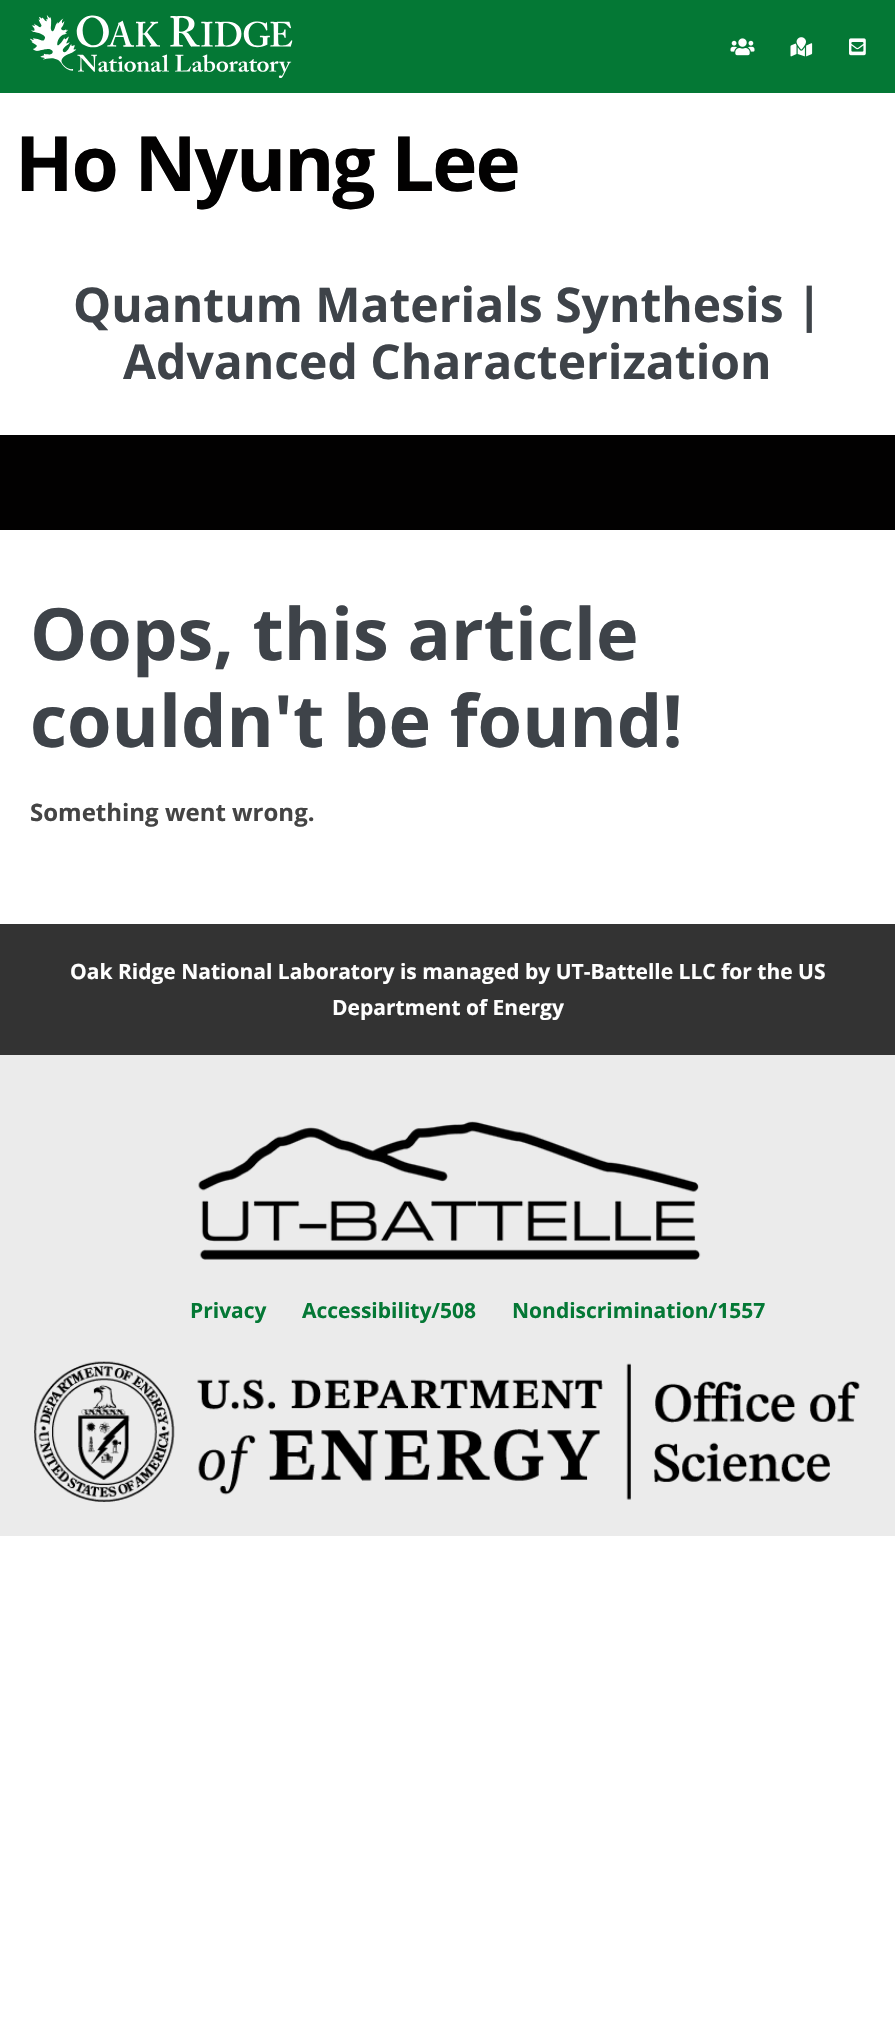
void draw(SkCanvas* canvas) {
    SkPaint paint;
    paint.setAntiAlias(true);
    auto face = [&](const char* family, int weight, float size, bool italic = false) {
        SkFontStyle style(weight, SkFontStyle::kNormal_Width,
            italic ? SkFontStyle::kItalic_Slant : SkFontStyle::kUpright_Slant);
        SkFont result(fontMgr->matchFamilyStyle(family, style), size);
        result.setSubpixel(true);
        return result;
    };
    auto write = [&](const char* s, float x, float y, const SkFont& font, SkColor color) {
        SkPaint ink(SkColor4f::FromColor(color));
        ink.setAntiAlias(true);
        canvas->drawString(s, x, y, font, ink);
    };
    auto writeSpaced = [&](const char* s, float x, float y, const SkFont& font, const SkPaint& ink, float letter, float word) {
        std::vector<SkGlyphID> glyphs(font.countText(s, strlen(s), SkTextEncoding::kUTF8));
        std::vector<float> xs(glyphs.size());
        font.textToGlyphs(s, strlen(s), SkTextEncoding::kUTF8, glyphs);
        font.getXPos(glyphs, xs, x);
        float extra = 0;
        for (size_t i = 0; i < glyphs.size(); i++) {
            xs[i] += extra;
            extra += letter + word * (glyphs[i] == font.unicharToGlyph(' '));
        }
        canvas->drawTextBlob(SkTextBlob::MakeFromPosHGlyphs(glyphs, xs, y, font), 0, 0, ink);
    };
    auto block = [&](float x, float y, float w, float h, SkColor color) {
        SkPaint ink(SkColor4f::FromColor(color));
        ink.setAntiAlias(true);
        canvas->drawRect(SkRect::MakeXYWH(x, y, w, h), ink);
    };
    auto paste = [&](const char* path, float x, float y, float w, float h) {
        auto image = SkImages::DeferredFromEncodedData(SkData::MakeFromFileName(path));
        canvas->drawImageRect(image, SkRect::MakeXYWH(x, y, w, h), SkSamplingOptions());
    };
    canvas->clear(SK_ColorWHITE);
    block(0, 0, 895, 93, SkColorSetRGB(4, 120, 53));
    paste("pic1.png", 30, 15, 263, 63);
    paste("pic2.png", 730, 38, 25, 18);
    paste("pic3.png", 790, 37, 23, 20);
    paste("pic4.png", 849, 38, 17, 18);
    auto kFont1 = face("Open Sans", 700, 76.5f);
    paint.setColor(SkColorSetRGB(2, 1, 1));
    writeSpaced("Ho Nyung Lee", 15, 191, kFont1, paint, -2.1f, 0);
    auto kFont2 = face("Open Sans", 700, 48);
    write("Quantum Materials Synthesis |", 73, 322, kFont2, SkColorSetRGB(62, 67, 73));
    write("Advanced Characterization", 123, 379, kFont2, SkColorSetRGB(62, 67, 73));
    block(0, 435, 895, 95, SkColorSetRGB(2, 1, 1));
    auto kFont3 = face("Open Sans", 700, 72);
    write("Oops, this article", 30, 660, kFont3, SkColorSetRGB(62, 67, 73));
    write("couldn't be found!", 30, 747, kFont3, SkColorSetRGB(62, 67, 73));
    auto kFont4 = face("Open Sans", 700, 24);
    write("Something went wrong.", 30, 821, kFont4, SkColorSetRGB(68, 68, 68));
    block(0, 924, 895, 131, SkColorSetRGB(51, 51, 51));
    auto kFont5 = face("Open Sans", 700, 21);
    write("Oak Ridge National Laboratory is managed by UT-Battelle LLC for the US", 70, 979, kFont5, SK_ColorWHITE);
    write("Department of Energy", 332, 1015, kFont5, SK_ColorWHITE);
    block(0, 1055, 895, 481, SkColorSetRGB(235, 235, 235));
    paste("pic5.png", 198, 1121, 503, 139);
    write("Privacy", 190, 1318, kFont5, SkColorSetRGB(4, 120, 53));
    write("Accessibility/508", 302, 1318, kFont5, SkColorSetRGB(4, 120, 53));
    write("Nondiscrimination/1557", 512, 1318, kFont5, SkColorSetRGB(4, 120, 53));
    paste("pic6.png", 34, 1361, 826, 141);
}
